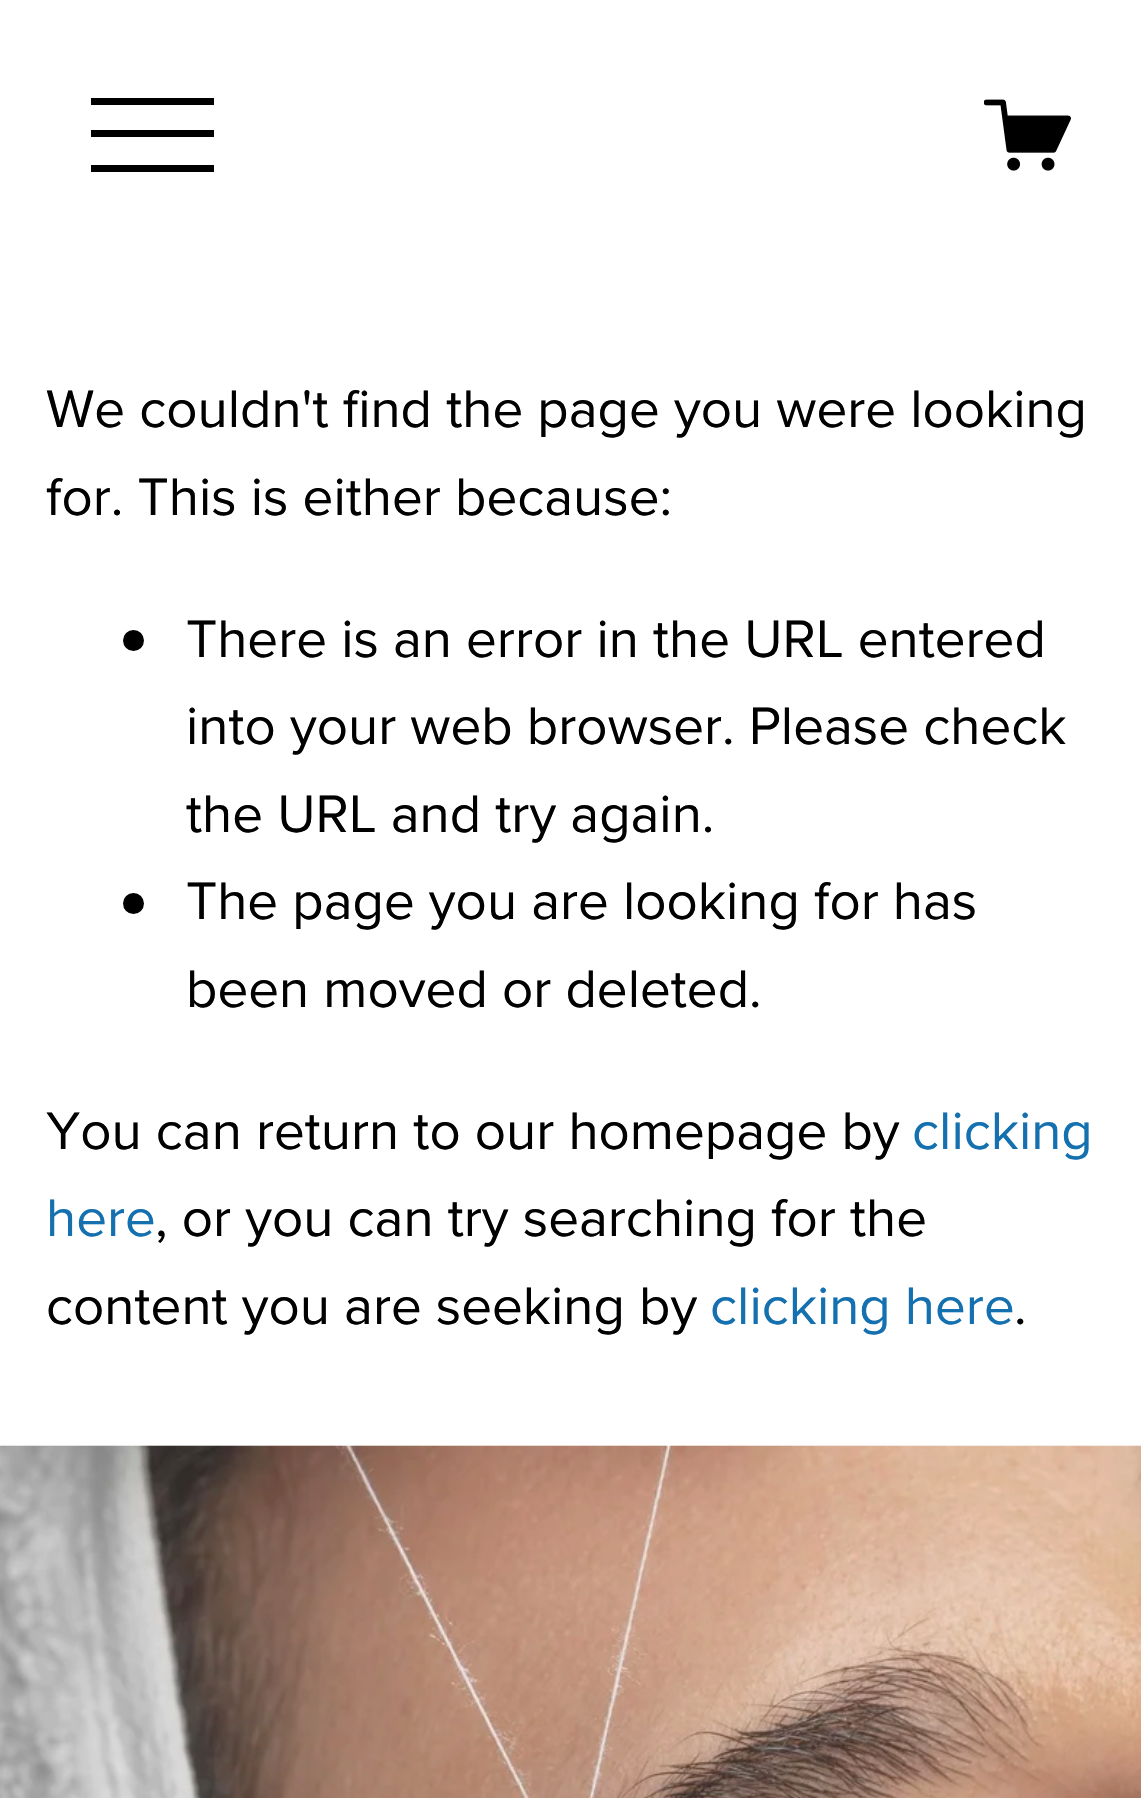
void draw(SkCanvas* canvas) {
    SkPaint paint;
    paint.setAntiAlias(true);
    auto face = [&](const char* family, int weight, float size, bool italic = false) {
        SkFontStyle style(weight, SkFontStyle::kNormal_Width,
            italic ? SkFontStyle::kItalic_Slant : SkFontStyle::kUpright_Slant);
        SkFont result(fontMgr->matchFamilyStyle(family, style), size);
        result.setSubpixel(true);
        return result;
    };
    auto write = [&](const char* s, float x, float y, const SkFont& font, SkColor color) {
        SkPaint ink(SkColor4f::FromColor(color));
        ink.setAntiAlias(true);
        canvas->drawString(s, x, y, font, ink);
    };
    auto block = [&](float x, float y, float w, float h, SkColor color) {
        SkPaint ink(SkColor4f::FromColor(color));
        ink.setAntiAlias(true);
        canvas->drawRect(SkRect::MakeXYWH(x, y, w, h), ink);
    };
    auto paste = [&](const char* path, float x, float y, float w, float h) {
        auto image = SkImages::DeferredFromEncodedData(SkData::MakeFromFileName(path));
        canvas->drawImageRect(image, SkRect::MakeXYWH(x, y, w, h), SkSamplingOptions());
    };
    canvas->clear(SK_ColorWHITE);
    block(91, 98, 123, 7, SK_ColorBLACK);
    block(91, 130, 123, 7, SK_ColorBLACK);
    block(91, 165, 123, 7, SK_ColorBLACK);
    paste("pic1.png", 984, 99, 87, 72);
    auto kFont1 = face("Proxima Nova", 400, 54.7f);
    write("We couldn't find the page you were looking", 46, 427, kFont1, SK_ColorBLACK);
    write("for. This is either because:", 46, 515, kFont1, SK_ColorBLACK);
    paint.setColor(SK_ColorBLACK);
    canvas->drawCircle(133.5f, 640.5f, 10.5f, paint);
    write("There is an error in the URL entered", 186, 657, kFont1, SK_ColorBLACK);
    write("into your web browser. Please check", 186, 744, kFont1, SK_ColorBLACK);
    write("the URL and try again.", 186, 832, kFont1, SK_ColorBLACK);
    canvas->drawCircle(133.5f, 903.5f, 10.5f, paint);
    write("The page you are looking for has", 186, 919, kFont1, SK_ColorBLACK);
    write("been moved or deleted.", 186, 1007, kFont1, SK_ColorBLACK);
    write("You can return to our homepage by", 46, 1149, kFont1, SK_ColorBLACK);
    write("clicking", 912, 1149, kFont1, SkColorSetRGB(20, 112, 175));
    write("here", 46, 1236, kFont1, SkColorSetRGB(20, 112, 175));
    write(", or you can try searching for the", 155, 1236, kFont1, SK_ColorBLACK);
    write("content you are seeking by", 46, 1324, kFont1, SK_ColorBLACK);
    write("clicking here", 710, 1324, kFont1, SkColorSetRGB(20, 112, 175));
    write(".", 1014, 1324, kFont1, SK_ColorBLACK);
    paste("pic2.png", 0, 1445, 1141, 353);
}
